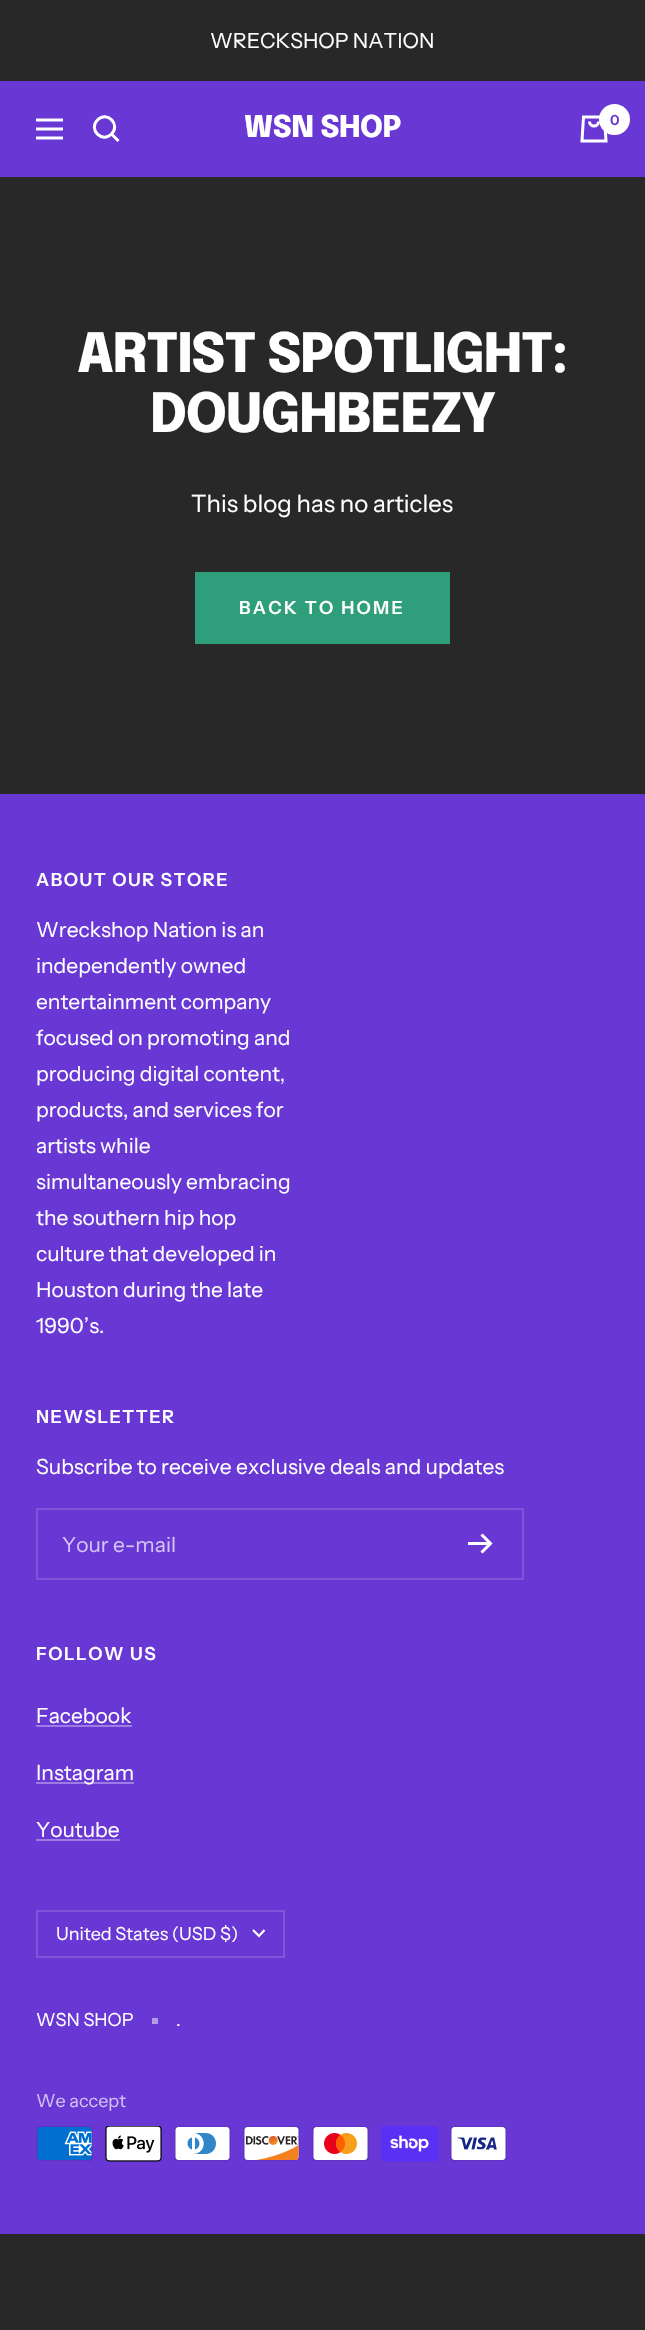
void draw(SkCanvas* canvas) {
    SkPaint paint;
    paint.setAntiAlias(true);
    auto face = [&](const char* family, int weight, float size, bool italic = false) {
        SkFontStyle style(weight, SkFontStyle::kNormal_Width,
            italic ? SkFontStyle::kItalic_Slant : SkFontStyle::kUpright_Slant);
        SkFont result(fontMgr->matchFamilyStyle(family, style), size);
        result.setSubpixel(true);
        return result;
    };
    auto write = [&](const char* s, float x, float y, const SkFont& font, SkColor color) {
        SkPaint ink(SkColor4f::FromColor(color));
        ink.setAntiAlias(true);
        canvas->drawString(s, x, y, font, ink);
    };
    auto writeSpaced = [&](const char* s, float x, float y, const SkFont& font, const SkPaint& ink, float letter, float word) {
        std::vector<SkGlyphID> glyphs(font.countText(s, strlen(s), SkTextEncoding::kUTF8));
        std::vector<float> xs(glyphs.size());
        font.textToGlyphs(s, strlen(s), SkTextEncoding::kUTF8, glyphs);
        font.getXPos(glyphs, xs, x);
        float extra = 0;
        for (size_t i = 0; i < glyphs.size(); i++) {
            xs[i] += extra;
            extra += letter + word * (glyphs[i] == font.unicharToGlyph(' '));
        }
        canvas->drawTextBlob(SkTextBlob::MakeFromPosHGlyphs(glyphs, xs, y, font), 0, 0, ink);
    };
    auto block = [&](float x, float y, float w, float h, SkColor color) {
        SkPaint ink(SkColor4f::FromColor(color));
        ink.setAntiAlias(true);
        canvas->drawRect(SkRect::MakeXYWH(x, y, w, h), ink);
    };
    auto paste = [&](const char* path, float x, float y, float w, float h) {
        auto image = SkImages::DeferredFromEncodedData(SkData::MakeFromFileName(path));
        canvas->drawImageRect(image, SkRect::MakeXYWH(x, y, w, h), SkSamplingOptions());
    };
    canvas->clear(SkColorSetRGB(40, 40, 40));
    auto kFont1 = face("Instrument Sans", 400, 21);
    write("WRECKSHOP NATION", 210, 48, kFont1, SK_ColorWHITE);
    block(0, 81, 645, 96, SkColorSetRGB(104, 55, 212));
    paint.setStyle(SkPaint::kStroke_Style);
    paint.setStrokeWidth(3);
    paint.setColor(SK_ColorWHITE);
    canvas->drawPath(SkPathBuilder().moveTo(36, 120).lineTo(63, 120).moveTo(36, 138).lineTo(63, 138).close().moveTo(36, 129).lineTo(63, 129).close().detach(), paint);
    canvas->drawPath(SkPathBuilder().moveTo(111.5f, 134).cubicTo(121, 124.5f, 107, 110.5f, 97.5f, 120).cubicTo(88, 129.5f, 102, 143.5f, 111.5f, 134).close().moveTo(111.5f, 134).lineTo(118.5f, 141).detach(), paint);
    auto kFont2 = face("Epilogue", 800, 30);
    paint.setStyle(SkPaint::kFill_Style);
    writeSpaced("WSN SHOP", 244, 137, kFont2, paint, -0.5f, 0);
    paint.setStyle(SkPaint::kStroke_Style);
    canvas->drawPath(SkPathBuilder().moveTo(583.5f, 117).lineTo(604.5f, 117).lineTo(606, 141).lineTo(582, 141).close().moveTo(589.5f, 121.5f).cubicTo(589.5f, 127.5f, 598.5f, 127.5f, 598.5f, 121.5f).detach(), paint);
    paint.setStyle(SkPaint::kFill_Style);
    canvas->drawCircle(614.5f, 119.5f, 15.5f, paint);
    auto kFont3 = face("Instrument Sans", 600, 14);
    write("0", 610, 125, kFont3, SkColorSetRGB(104, 55, 212));
    auto kFont4 = face("Epilogue", 800, 54);
    writeSpaced("ARTIST SPOTLIGHT:", 77, 372, kFont4, paint, -1.4f, 0);
    writeSpaced("DOUGHBEEZY", 150, 432, kFont4, paint, -1.4f, 0);
    auto kFont5 = face("Instrument Sans", 400, 24);
    write("This blog has no articles", 191, 512, kFont5, SK_ColorWHITE);
    block(195, 572, 255, 72, SkColorSetRGB(46, 158, 123));
    auto kFont6 = face("Instrument Sans", 600, 18);
    writeSpaced("BACK TO HOME", 239, 614, kFont6, paint, 2.25f, 0);
    block(0, 794, 645, 1440, SkColorSetRGB(104, 55, 212));
    writeSpaced("ABOUT OUR STORE", 36, 886, kFont6, paint, 1.5f, 0);
    write("Wreckshop Nation is an", 36, 937, kFont1, SK_ColorWHITE);
    write("independently owned", 36, 973, kFont1, SK_ColorWHITE);
    write("entertainment company", 36, 1009, kFont1, SK_ColorWHITE);
    write("focused on promoting and", 36, 1045, kFont1, SK_ColorWHITE);
    write("producing digital content,", 36, 1081, kFont1, SK_ColorWHITE);
    write("products, and services for", 36, 1117, kFont1, SK_ColorWHITE);
    write("artists while", 36, 1153, kFont1, SK_ColorWHITE);
    write("simultaneously embracing", 36, 1189, kFont1, SK_ColorWHITE);
    write("the southern hip hop", 36, 1225, kFont1, SK_ColorWHITE);
    write("culture that developed in", 36, 1261, kFont1, SK_ColorWHITE);
    write("Houston during the late", 36, 1297, kFont1, SK_ColorWHITE);
    write("1990’s.", 36, 1333, kFont1, SK_ColorWHITE);
    writeSpaced("NEWSLETTER", 36, 1423, kFont6, paint, 1.5f, 0);
    write("Subscribe to receive exclusive deals and updates", 36, 1474, kFont1, SK_ColorWHITE);
    paint.setStyle(SkPaint::kStroke_Style);
    paint.setStrokeWidth(2);
    paint.setColor(SkColorSetRGB(127, 85, 218));
    canvas->drawRect(SkRect::MakeXYWH(37, 1509, 486, 70), paint);
    write("Your e-mail", 62, 1552, kFont1, SkColorSetRGB(210, 195, 242));
    paint.setStrokeWidth(3);
    paint.setColor(SK_ColorWHITE);
    canvas->drawPath(SkPathBuilder().moveTo(468, 1543.5f).lineTo(490.5f, 1543.5f).moveTo(481.5f, 1534.5f).lineTo(490.5f, 1543.5f).lineTo(481.5f, 1552.5f).detach(), paint);
    paint.setStyle(SkPaint::kFill_Style);
    writeSpaced("FOLLOW US", 36, 1660, kFont6, paint, 1.5f, 0);
    write("Facebook", 36, 1723, kFont1, SK_ColorWHITE);
    block(36, 1725, 96, 2, SkColorSetRGB(157, 125, 227));
    block(36, 1782, 98, 2, SkColorSetRGB(157, 125, 227));
    write("Instagram", 36, 1780, kFont1, SK_ColorWHITE);
    write("Youtube", 36, 1837, kFont1, SK_ColorWHITE);
    block(36, 1839, 84, 2, SkColorSetRGB(157, 125, 227));
    paint.setStyle(SkPaint::kStroke_Style);
    paint.setStrokeWidth(2);
    paint.setColor(SkColorSetRGB(127, 85, 218));
    canvas->drawRect(SkRect::MakeXYWH(37, 1911, 247, 46), paint);
    auto kFont7 = face("Instrument Sans", 400, 18);
    write("United States (USD $)", 56, 1940, kFont7, SK_ColorWHITE);
    paint.setStrokeWidth(2.2f);
    paint.setColor(SK_ColorWHITE);
    canvas->drawPath(SkPathBuilder().moveTo(253, 1930).lineTo(259, 1936).lineTo(264.5f, 1930).detach(), paint);
    write("WSN SHOP", 36, 2026, kFont7, SK_ColorWHITE);
    block(152, 2018, 6, 6, SkColorSetRGB(180, 155, 234));
    write(".", 176, 2026, kFont7, SK_ColorWHITE);
    write("We accept", 36, 2107, kFont7, SkColorSetRGB(210, 195, 242));
    paste("pic1.png", 36, 2126, 57, 36);
    paste("pic2.png", 105, 2126, 57, 36);
    paste("pic3.png", 174, 2126, 57, 36);
    paste("pic4.png", 243, 2126, 57, 36);
    paste("pic5.png", 312, 2126, 57, 36);
    paste("pic6.png", 381, 2126, 57, 36);
    paste("pic7.png", 450, 2126, 57, 36);
}
